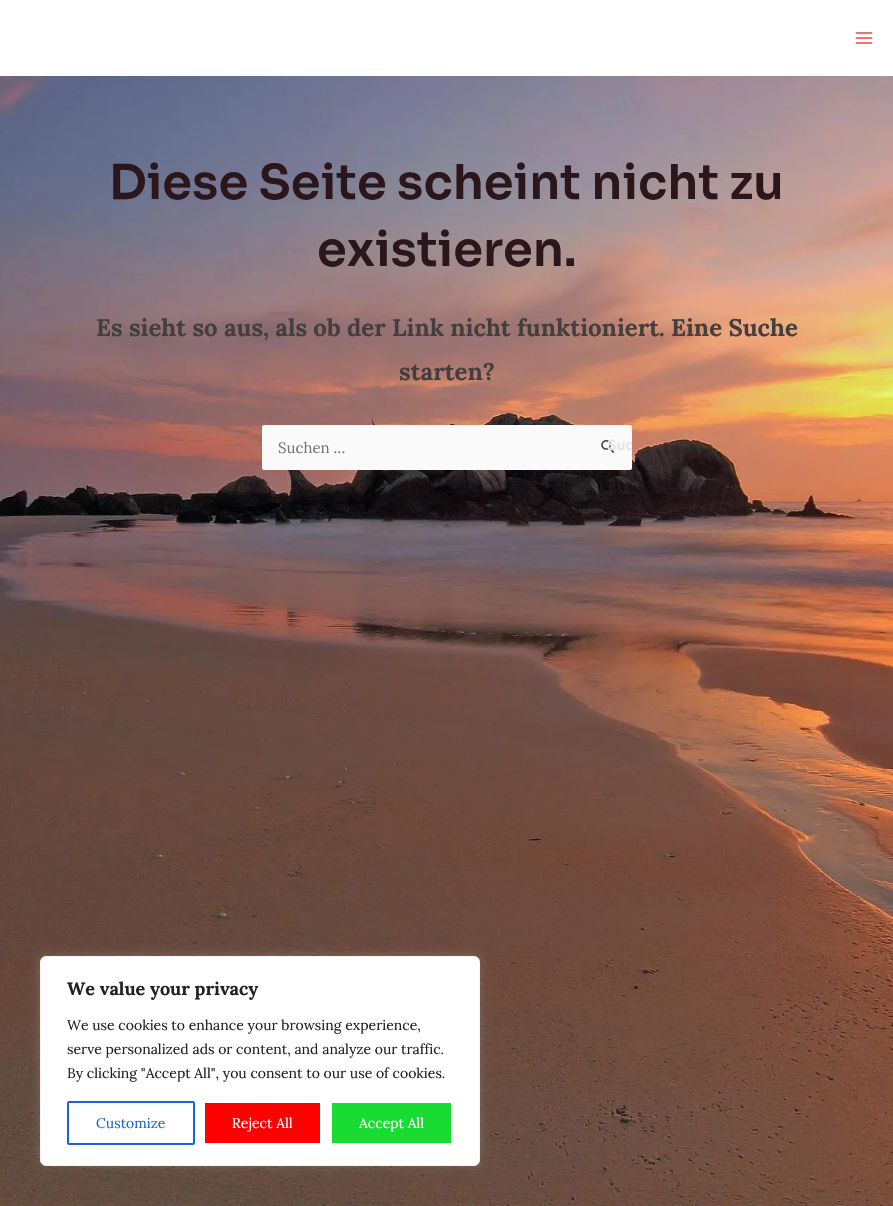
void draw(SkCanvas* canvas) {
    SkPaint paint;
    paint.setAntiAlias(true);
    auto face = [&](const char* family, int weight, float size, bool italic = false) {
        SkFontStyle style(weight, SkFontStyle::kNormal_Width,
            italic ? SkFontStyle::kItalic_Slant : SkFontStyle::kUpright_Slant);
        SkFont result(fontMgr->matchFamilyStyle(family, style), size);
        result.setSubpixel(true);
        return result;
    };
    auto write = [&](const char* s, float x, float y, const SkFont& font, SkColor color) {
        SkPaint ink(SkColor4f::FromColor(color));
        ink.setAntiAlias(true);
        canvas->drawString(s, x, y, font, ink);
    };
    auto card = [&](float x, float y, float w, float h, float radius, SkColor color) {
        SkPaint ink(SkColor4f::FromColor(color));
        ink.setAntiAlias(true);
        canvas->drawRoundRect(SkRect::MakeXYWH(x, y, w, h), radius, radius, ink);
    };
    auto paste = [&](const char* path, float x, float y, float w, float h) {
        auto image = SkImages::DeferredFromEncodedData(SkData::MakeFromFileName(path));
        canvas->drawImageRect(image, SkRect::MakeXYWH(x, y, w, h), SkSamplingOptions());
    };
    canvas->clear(SK_ColorWHITE);
    paste("pic1.png", 0, 76, 893, 1130);
    paste("pic2.png", 855, 32, 18, 12);
    auto kFont1 = face("Sora", 600, 48);
    write("Diese Seite scheint nicht zu", 109, 199, kFont1, SkColorSetRGB(43, 22, 27));
    write("existieren.", 317, 266, kFont1, SkColorSetRGB(43, 22, 27));
    auto kFont2 = face("Lora", 700, 24);
    write("Es sieht so aus, als ob der Link nicht funktioniert. Eine Suche", 96, 336, kFont2, SkColorSetRGB(69, 62, 62));
    write("starten?", 399, 380, kFont2, SkColorSetRGB(69, 62, 62));
    card(262, 425, 370, 45, 2, SkColorSetRGB(250, 250, 250));
    paste("pic3.png", 601, 440, 14, 13);
    canvas->save();
    canvas->clipPath(SkPathBuilder().moveTo(589, 425).lineTo(630, 425).cubicTo(631, 425, 632, 426, 632, 427).lineTo(632, 463).cubicTo(632, 464, 631, 465, 630, 465).lineTo(589, 465).cubicTo(588, 465, 587, 464, 587, 463).lineTo(587, 427).cubicTo(587, 426, 588, 425, 589, 425).close().detach(), true);
    auto kFont3 = face("Sora", 600, 14);
    write("Suc", 607, 450, kFont3, SkColorSetRGB(231, 230, 230));
    canvas->restore();
    auto kFont4 = face("Lora", 400, 15);
    write("Suchen …", 278, 453, kFont4, SkColorSetRGB(117, 117, 117));
    paint.setColor(SkColorSetARGB(77, 172, 171, 171));
    paint.setMaskFilter(SkMaskFilter::MakeBlur(kNormal_SkBlurStyle, 5));
    canvas->drawRoundRect(SkRect::MakeXYWH(40, 955, 440, 210), 6, 6, paint);
    paint.setMaskFilter(nullptr);
    paint.setColor(SK_ColorWHITE);
    canvas->drawRoundRect(SkRect::MakeXYWH(40.5f, 956.5f, 439, 209), 5.5f, 5.5f, paint);
    paint.setStyle(SkPaint::kStroke_Style);
    paint.setStrokeWidth(1);
    paint.setColor(SkColorSetRGB(244, 244, 244));
    canvas->drawRoundRect(SkRect::MakeXYWH(40.5f, 956.5f, 439, 209), 5.5f, 5.5f, paint);
    auto kFont5 = face("Lora", 700, 18);
    write("We value your privacy", 67, 995, kFont5, SkColorSetRGB(33, 33, 33));
    auto kFont6 = face("Lora", 400, 14);
    write("We use cookies to enhance your browsing experience,", 67, 1030, kFont6, SkColorSetRGB(33, 33, 33));
    write("serve personalized ads or content, and analyze our traffic.", 67, 1054, kFont6, SkColorSetRGB(33, 33, 33));
    write("By clicking \"Accept All\", you consent to our use of cookies.", 67, 1078, kFont6, SkColorSetRGB(33, 33, 33));
    paint.setStrokeWidth(2);
    paint.setColor(SkColorSetRGB(24, 99, 220));
    canvas->drawRoundRect(SkRect::MakeXYWH(68, 1102, 126, 42), 1, 1, paint);
    write("Customize", 96, 1128, kFont6, SkColorSetRGB(24, 99, 220));
    paint.setStyle(SkPaint::kFill_Style);
    paint.setColor(SkColorSetRGB(255, 0, 0));
    canvas->drawRoundRect(SkRect::MakeXYWH(204, 1102, 117, 42), 1, 1, paint);
    paint.setStyle(SkPaint::kStroke_Style);
    paint.setColor(SK_ColorWHITE);
    canvas->drawRoundRect(SkRect::MakeXYWH(204, 1102, 117, 42), 1, 1, paint);
    write("Reject All", 232, 1128, kFont6, SK_ColorWHITE);
    paint.setStyle(SkPaint::kFill_Style);
    paint.setColor(SkColorSetRGB(24, 220, 49));
    canvas->drawRoundRect(SkRect::MakeXYWH(331, 1102, 121, 42), 1, 1, paint);
    paint.setStyle(SkPaint::kStroke_Style);
    paint.setColor(SK_ColorWHITE);
    canvas->drawRoundRect(SkRect::MakeXYWH(331, 1102, 121, 42), 1, 1, paint);
    write("Accept All", 359, 1128, kFont6, SK_ColorWHITE);
}
